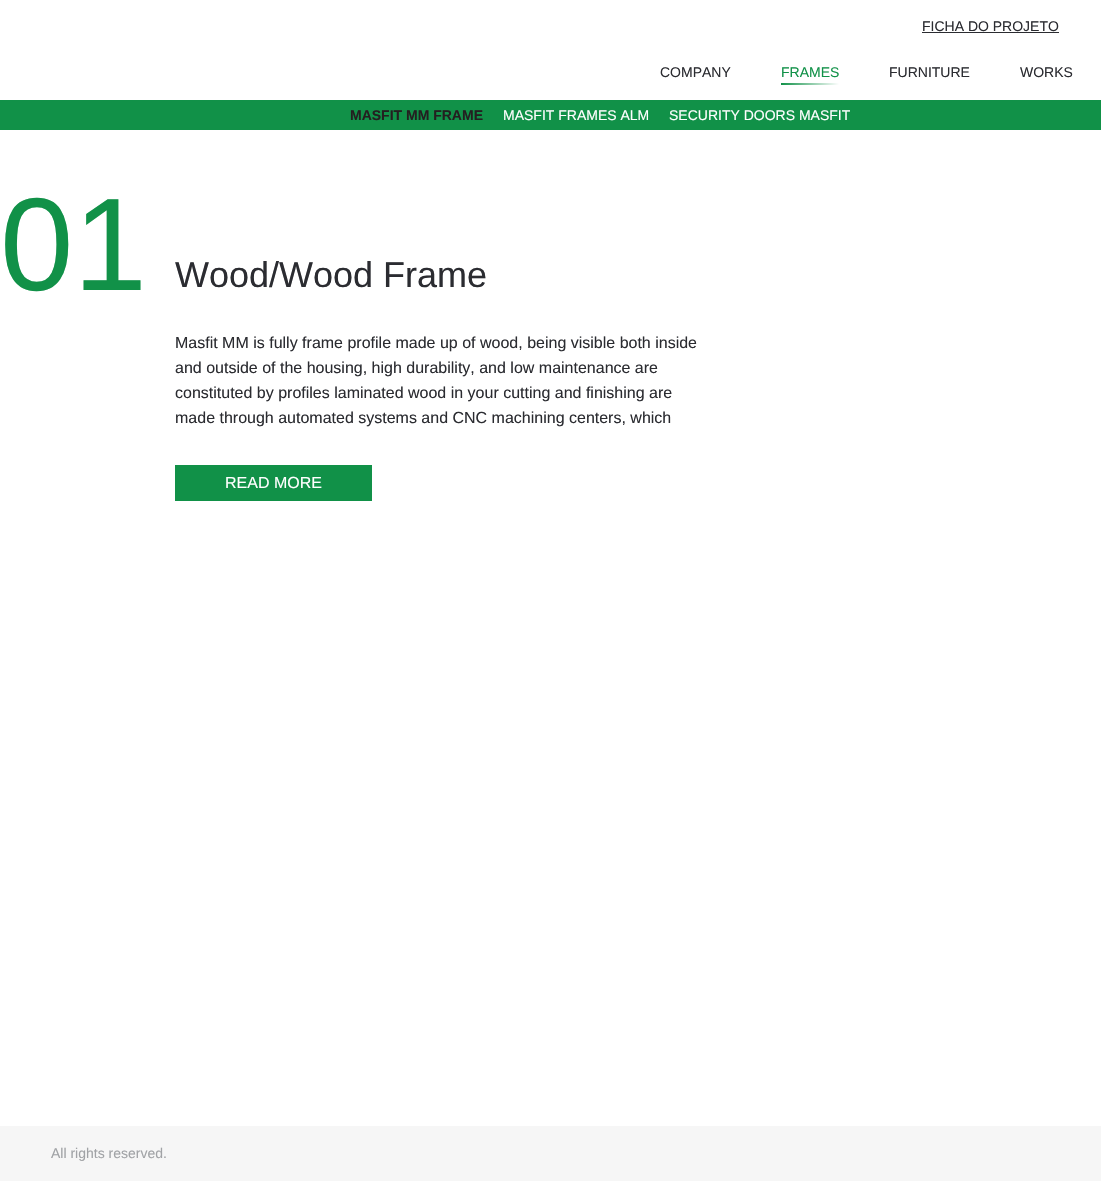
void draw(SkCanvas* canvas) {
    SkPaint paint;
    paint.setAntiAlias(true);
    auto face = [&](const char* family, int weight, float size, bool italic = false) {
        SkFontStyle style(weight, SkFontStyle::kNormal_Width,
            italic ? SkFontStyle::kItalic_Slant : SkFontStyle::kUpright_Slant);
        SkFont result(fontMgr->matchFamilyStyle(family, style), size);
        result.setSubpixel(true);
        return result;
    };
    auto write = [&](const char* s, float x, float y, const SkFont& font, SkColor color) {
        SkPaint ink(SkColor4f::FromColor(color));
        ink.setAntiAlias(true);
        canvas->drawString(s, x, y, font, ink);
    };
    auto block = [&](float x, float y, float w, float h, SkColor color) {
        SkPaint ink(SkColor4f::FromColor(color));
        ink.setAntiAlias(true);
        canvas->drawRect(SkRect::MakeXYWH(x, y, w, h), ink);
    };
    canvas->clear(SK_ColorWHITE);
    auto kFont1 = face("Liberation Sans", 400, 14);
    write("FICHA DO PROJETO", 922, 31, kFont1, SkColorSetRGB(43, 44, 49));
    block(922, 32, 137, 1, SkColorSetRGB(43, 44, 49));
    write("COMPANY", 660, 77, kFont1, SkColorSetRGB(43, 44, 49));
    write("FRAMES", 781, 77, kFont1, SkColorSetRGB(17, 145, 72));
    {
        const SkColor colors[] = {SkColorSetRGB(17, 145, 72), SK_ColorWHITE};
        const float stops[] = {0, 1};
        const SkPoint ends[] = {{781, 84}, {839, 84}};
        paint.setShader(SkGradientShader::MakeLinear(ends, colors, stops, 2, SkTileMode::kClamp));
        paint.setAlpha(255);
    }
    canvas->drawRect(SkRect::MakeXYWH(781, 83, 58, 2), paint);
    write("FURNITURE", 889, 77, kFont1, SkColorSetRGB(43, 44, 49));
    write("WORKS", 1020, 77, kFont1, SkColorSetRGB(43, 44, 49));
    block(0, 100, 1101, 30, SkColorSetRGB(17, 145, 72));
    auto kFont2 = face("Liberation Sans", 700, 14);
    write("MASFIT MM FRAME", 350, 120, kFont2, SkColorSetRGB(35, 31, 32));
    write("MASFIT FRAMES ALM", 503, 120, kFont1, SK_ColorWHITE);
    write("SECURITY DOORS MASFIT", 669, 120, kFont1, SK_ColorWHITE);
    auto kFont3 = face("Liberation Sans", 400, 132);
    write("01", 0, 290, kFont3, SkColorSetRGB(17, 145, 72));
    auto kFont4 = face("Liberation Sans", 400, 36);
    write("Wood/Wood Frame", 175, 287, kFont4, SkColorSetRGB(43, 44, 49));
    auto kFont5 = face("Liberation Sans", 400, 16);
    write("Masfit MM is fully frame profile made up of wood, being visible both inside", 175, 348, kFont5, SkColorSetRGB(43, 44, 49));
    write("and outside of the housing, high durability, and low maintenance are", 175, 373, kFont5, SkColorSetRGB(43, 44, 49));
    write("constituted by profiles laminated wood in your cutting and finishing are", 175, 398, kFont5, SkColorSetRGB(43, 44, 49));
    write("made through automated systems and CNC machining centers, which", 175, 423, kFont5, SkColorSetRGB(43, 44, 49));
    block(175, 465, 197, 36, SkColorSetRGB(17, 145, 72));
    write("READ MORE", 225, 488, kFont5, SK_ColorWHITE);
    block(0, 1126, 1101, 55, SkColorSetRGB(246, 246, 246));
    write("All rights reserved.", 51, 1158, kFont1, SkColorSetRGB(161, 163, 166));
}
